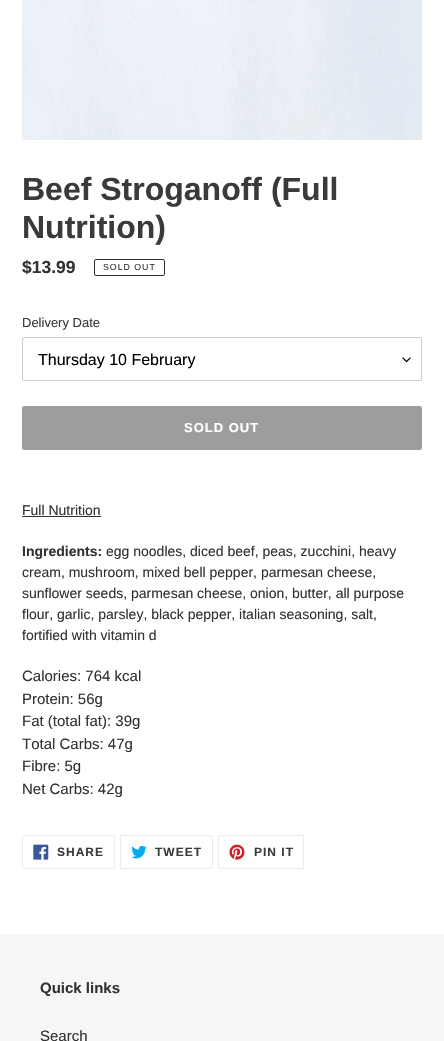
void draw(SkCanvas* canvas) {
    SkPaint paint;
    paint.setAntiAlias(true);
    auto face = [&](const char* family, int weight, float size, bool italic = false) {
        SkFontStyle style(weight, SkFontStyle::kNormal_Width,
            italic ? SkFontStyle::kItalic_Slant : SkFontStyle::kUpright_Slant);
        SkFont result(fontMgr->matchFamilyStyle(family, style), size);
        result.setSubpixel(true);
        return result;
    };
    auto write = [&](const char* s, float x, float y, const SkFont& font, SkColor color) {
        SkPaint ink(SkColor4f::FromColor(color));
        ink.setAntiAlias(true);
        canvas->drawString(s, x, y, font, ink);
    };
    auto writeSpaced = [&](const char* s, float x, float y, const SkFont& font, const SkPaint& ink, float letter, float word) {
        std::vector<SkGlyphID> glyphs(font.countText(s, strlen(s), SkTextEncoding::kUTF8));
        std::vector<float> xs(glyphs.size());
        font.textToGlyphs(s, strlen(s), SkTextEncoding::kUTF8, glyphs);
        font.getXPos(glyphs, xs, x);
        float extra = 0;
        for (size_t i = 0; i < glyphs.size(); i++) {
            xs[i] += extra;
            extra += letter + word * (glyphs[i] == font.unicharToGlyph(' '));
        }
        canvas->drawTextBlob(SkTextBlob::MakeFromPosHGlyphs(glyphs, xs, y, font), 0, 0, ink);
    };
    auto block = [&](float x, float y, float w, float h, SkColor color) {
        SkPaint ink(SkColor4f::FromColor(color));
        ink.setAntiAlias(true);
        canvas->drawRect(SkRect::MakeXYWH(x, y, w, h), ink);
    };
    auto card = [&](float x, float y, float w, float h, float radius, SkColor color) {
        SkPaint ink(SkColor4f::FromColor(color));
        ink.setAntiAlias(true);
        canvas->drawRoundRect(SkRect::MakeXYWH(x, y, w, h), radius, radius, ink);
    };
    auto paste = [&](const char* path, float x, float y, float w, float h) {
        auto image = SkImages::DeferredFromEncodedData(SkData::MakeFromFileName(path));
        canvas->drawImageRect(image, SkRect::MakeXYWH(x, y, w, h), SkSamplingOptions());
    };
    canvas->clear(SK_ColorWHITE);
    paste("pic1.png", 22, 0, 400, 140);
    auto kFont1 = face("Liberation Sans", 700, 32);
    write("Beef Stroganoff (Full", 22, 200, kFont1, SkColorSetRGB(58, 58, 58));
    write("Nutrition)", 22, 238, kFont1, SkColorSetRGB(58, 58, 58));
    auto kFont2 = face("Liberation Sans", 700, 17.5f);
    write("$13.99", 22, 273, kFont2, SkColorSetRGB(51, 50, 50));
    paint.setStyle(SkPaint::kStroke_Style);
    paint.setStrokeWidth(1);
    paint.setColor(SkColorSetRGB(51, 50, 50));
    canvas->drawRoundRect(SkRect::MakeXYWH(94.5f, 259.5f, 70, 16), 1.5f, 1.5f, paint);
    auto kFont3 = face("Liberation Sans", 400, 8.75f);
    paint.setStyle(SkPaint::kFill_Style);
    writeSpaced("SOLD OUT", 103, 270, kFont3, paint, 1, 0);
    auto kFont4 = face("Liberation Sans", 400, 13);
    write("Delivery Date", 22, 327, kFont4, SkColorSetRGB(58, 58, 58));
    paste("pic2.png", 402, 357, 9, 6);
    paint.setStyle(SkPaint::kStroke_Style);
    paint.setColor(SkColorSetRGB(204, 204, 204));
    canvas->drawRoundRect(SkRect::MakeXYWH(22.5f, 337.5f, 399, 43), 1.5f, 1.5f, paint);
    auto kFont5 = face("Liberation Sans", 400, 16);
    write("Thursday 10 February", 38, 365, kFont5, SK_ColorBLACK);
    card(22, 406, 400, 44, 2, SkColorSetRGB(157, 157, 157));
    auto kFont6 = face("Liberation Sans", 700, 13);
    paint.setStyle(SkPaint::kFill_Style);
    paint.setColor(SK_ColorWHITE);
    writeSpaced("SOLD OUT", 184, 432, kFont6, paint, 1, 0);
    auto kFont7 = face("Liberation Sans", 400, 14);
    write("Full Nutrition", 22, 515, kFont7, SkColorSetRGB(51, 50, 50));
    block(22, 516, 79, 1, SkColorSetRGB(51, 50, 50));
    auto kFont8 = face("Liberation Sans", 700, 14);
    write("Ingredients:", 22, 556, kFont8, SkColorSetRGB(51, 50, 50));
    write("egg noodles, diced beef, peas, zucchini, heavy", 106, 556, kFont7, SkColorSetRGB(51, 50, 50));
    write("cream, mushroom, mixed bell pepper, parmesan cheese,", 22, 577, kFont7, SkColorSetRGB(51, 50, 50));
    write("sunflower seeds, parmesan cheese, onion, butter, all purpose", 22, 598, kFont7, SkColorSetRGB(51, 50, 50));
    write("flour, garlic, parsley, black pepper, italian seasoning, salt,", 22, 619, kFont7, SkColorSetRGB(51, 50, 50));
    write("fortified with vitamin d", 22, 640, kFont7, SkColorSetRGB(51, 50, 50));
    auto kFont9 = face("Liberation Sans", 400, 15);
    write("Calories: 764 kcal", 22, 681, kFont9, SkColorSetRGB(51, 50, 50));
    write("Protein: 56g", 22, 704, kFont9, SkColorSetRGB(51, 50, 50));
    write("Fat (total fat): 39g", 22, 726, kFont9, SkColorSetRGB(51, 50, 50));
    write("Total Carbs: 47g", 22, 749, kFont9, SkColorSetRGB(51, 50, 50));
    write("Fibre: 5g", 22, 771, kFont9, SkColorSetRGB(51, 50, 50));
    write("Net Carbs: 42g", 22, 794, kFont9, SkColorSetRGB(51, 50, 50));
    paint.setStyle(SkPaint::kStroke_Style);
    paint.setColor(SkColorSetRGB(235, 235, 235));
    canvas->drawRoundRect(SkRect::MakeXYWH(22.5f, 835.5f, 92, 33), 1.5f, 1.5f, paint);
    paste("pic3.png", 33, 844, 16, 16);
    auto kFont10 = face("Liberation Sans", 700, 12);
    paint.setStyle(SkPaint::kFill_Style);
    paint.setColor(SkColorSetRGB(58, 58, 58));
    writeSpaced("SHARE", 57, 856, kFont10, paint, 1, 0);
    paint.setStyle(SkPaint::kStroke_Style);
    paint.setColor(SkColorSetRGB(235, 235, 235));
    canvas->drawRoundRect(SkRect::MakeXYWH(120.5f, 835.5f, 92, 33), 1.5f, 1.5f, paint);
    paste("pic4.png", 131, 845, 16, 14);
    paint.setStyle(SkPaint::kFill_Style);
    paint.setColor(SkColorSetRGB(58, 58, 58));
    writeSpaced("TWEET", 155, 856, kFont10, paint, 1, 0);
    paint.setStyle(SkPaint::kStroke_Style);
    paint.setColor(SkColorSetRGB(235, 235, 235));
    canvas->drawRoundRect(SkRect::MakeXYWH(218.5f, 835.5f, 85, 33), 1.5f, 1.5f, paint);
    paste("pic5.png", 229, 844, 16, 16);
    paint.setStyle(SkPaint::kFill_Style);
    paint.setColor(SkColorSetRGB(58, 58, 58));
    writeSpaced("PIN IT", 254, 856, kFont10, paint, 1, 0);
    block(0, 934, 444, 107, SkColorSetRGB(246, 246, 246));
    auto kFont11 = face("Liberation Sans", 700, 15);
    write("Quick links", 40, 993, kFont11, SkColorSetRGB(51, 50, 50));
    write("Search", 40, 1041, kFont9, SkColorSetRGB(51, 50, 50));
}
